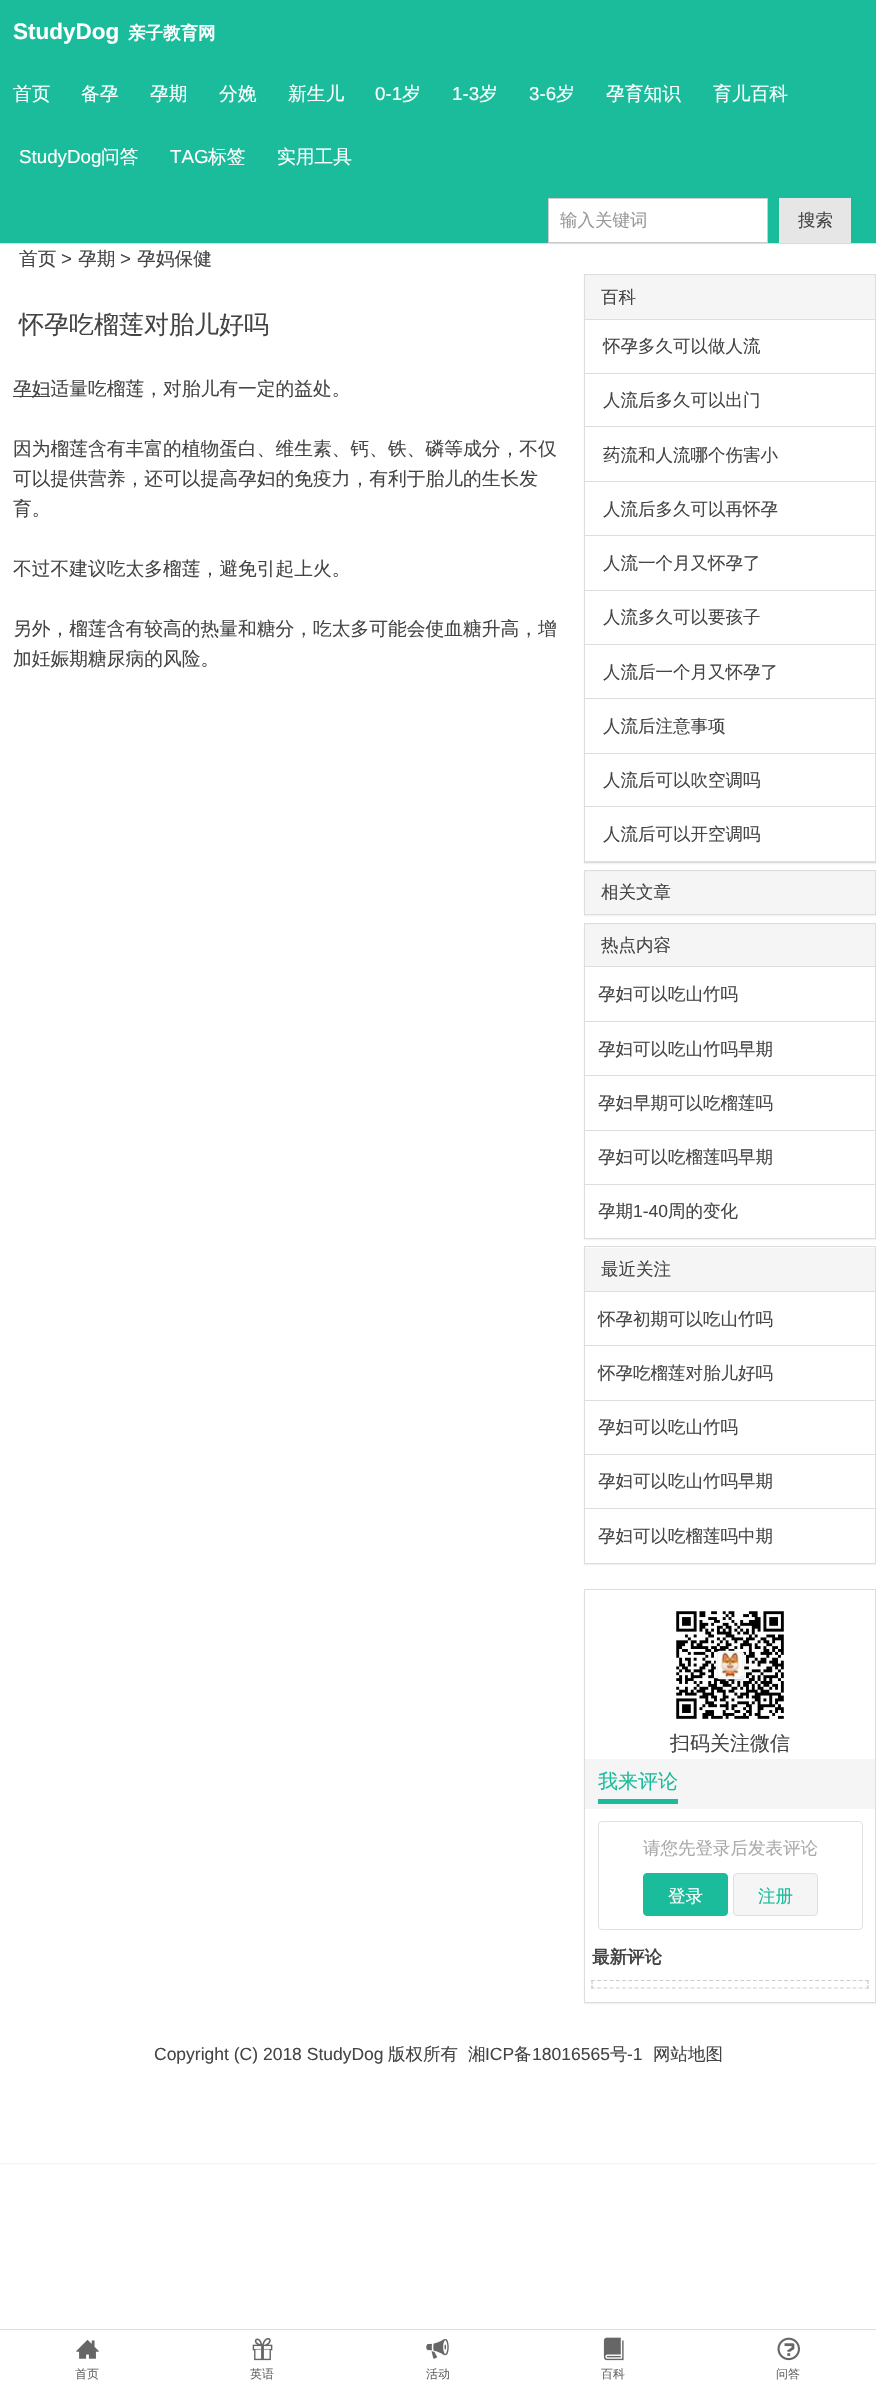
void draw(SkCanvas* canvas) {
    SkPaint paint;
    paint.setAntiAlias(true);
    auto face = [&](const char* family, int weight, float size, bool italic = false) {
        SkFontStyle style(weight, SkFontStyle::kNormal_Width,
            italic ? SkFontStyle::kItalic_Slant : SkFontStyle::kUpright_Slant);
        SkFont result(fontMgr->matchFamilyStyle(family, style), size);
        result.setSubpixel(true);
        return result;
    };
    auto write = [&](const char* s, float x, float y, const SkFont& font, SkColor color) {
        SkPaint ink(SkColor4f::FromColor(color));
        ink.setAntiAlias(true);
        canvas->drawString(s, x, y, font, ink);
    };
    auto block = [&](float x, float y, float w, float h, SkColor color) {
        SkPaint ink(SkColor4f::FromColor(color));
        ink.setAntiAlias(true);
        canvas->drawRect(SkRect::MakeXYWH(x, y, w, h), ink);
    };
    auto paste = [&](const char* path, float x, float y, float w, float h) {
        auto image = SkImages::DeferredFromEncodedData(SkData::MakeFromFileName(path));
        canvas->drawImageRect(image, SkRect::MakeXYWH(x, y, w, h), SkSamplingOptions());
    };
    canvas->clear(SK_ColorWHITE);
    paint.setColor(SkColorSetARGB(13, 0, 0, 0));
    paint.setMaskFilter(SkMaskFilter::MakeBlur(kNormal_SkBlurStyle, 0.5f));
    canvas->drawRect(SkRect::MakeXYWH(0, 245, 876, 1919), paint);
    paint.setMaskFilter(nullptr);
    block(0, 0, 876, 243, SkColorSetRGB(27, 188, 155));
    block(0, 243, 876, 1, SkColorSetRGB(221, 221, 221));
    auto kFont1 = face("Liberation Sans", 700, 22.5f);
    write("StudyDog", 13, 39, kFont1, SK_ColorWHITE);
    auto kFont2 = face("WenQuanYi Zen Hei", 700, 17.5f);
    write("亲子教育网", 128, 39, kFont2, SK_ColorWHITE);
    auto kFont3 = face("WenQuanYi Zen Hei", 500, 18.75f);
    write("首页", 13, 100, kFont3, SK_ColorWHITE);
    write("备孕", 81, 100, kFont3, SK_ColorWHITE);
    write("孕期", 150, 100, kFont3, SK_ColorWHITE);
    write("分娩", 219, 100, kFont3, SK_ColorWHITE);
    write("新生儿", 288, 100, kFont3, SK_ColorWHITE);
    auto kFont4 = face("Liberation Sans", 400, 18.75f);
    write("0-1", 375, 100, kFont4, SK_ColorWHITE);
    write("岁", 402, 100, kFont3, SK_ColorWHITE);
    write("1-3", 452, 100, kFont4, SK_ColorWHITE);
    write("岁", 479, 100, kFont3, SK_ColorWHITE);
    write("3-6", 529, 100, kFont4, SK_ColorWHITE);
    write("岁", 556, 100, kFont3, SK_ColorWHITE);
    write("孕育知识", 606, 100, kFont3, SK_ColorWHITE);
    write("育儿百科", 713, 100, kFont3, SK_ColorWHITE);
    write("StudyDog", 19, 163, kFont4, SK_ColorWHITE);
    write("问答", 101, 163, kFont3, SK_ColorWHITE);
    write("TAG", 170, 163, kFont4, SK_ColorWHITE);
    write("标签", 208, 163, kFont3, SK_ColorWHITE);
    write("实用工具", 277, 163, kFont3, SK_ColorWHITE);
    paint.setColor(SK_ColorWHITE);
    canvas->drawRect(SkRect::MakeXYWH(548.5f, 198.5f, 219, 44), paint);
    paint.setStyle(SkPaint::kStroke_Style);
    paint.setStrokeWidth(1);
    paint.setColor(SkColorSetRGB(204, 204, 204));
    canvas->drawRect(SkRect::MakeXYWH(548.5f, 198.5f, 219, 44), paint);
    auto kFont5 = face("WenQuanYi Zen Hei", 500, 17.5f);
    write("输入关键词", 560, 226, kFont5, SkColorSetRGB(153, 153, 153));
    block(779, 198, 72, 45, SkColorSetRGB(230, 230, 230));
    write("搜索", 798, 226, kFont5, SkColorSetRGB(68, 68, 68));
    block(0, 245, 876, 1918, SK_ColorWHITE);
    write("首页", 19, 265, kFont3, SkColorSetRGB(68, 68, 68));
    write(">", 61, 265, kFont4, SkColorSetRGB(68, 68, 68));
    write("孕期", 78, 265, kFont3, SkColorSetRGB(68, 68, 68));
    write(">", 120, 265, kFont4, SkColorSetRGB(68, 68, 68));
    write("孕妈保健", 137, 265, kFont3, SkColorSetRGB(68, 68, 68));
    auto kFont6 = face("WenQuanYi Zen Hei", 500, 25);
    write("怀孕吃榴莲对胎儿好吗", 19, 333, kFont6, SkColorSetRGB(68, 68, 68));
    block(13, 396, 37, 1, SkColorSetRGB(69, 69, 69));
    write("孕妇适量吃榴莲，对胎儿有一定的益处。", 13, 395, kFont3, SkColorSetRGB(68, 68, 68));
    write("因为榴莲含有丰富的植物蛋白、维生素、钙、铁、磷等成分，不仅", 13, 455, kFont3, SkColorSetRGB(68, 68, 68));
    write("可以提供营养，还可以提高孕妇的免疫力，有利于胎儿的生长发", 13, 485, kFont3, SkColorSetRGB(68, 68, 68));
    write("育。", 13, 515, kFont3, SkColorSetRGB(68, 68, 68));
    write("不过不建议吃太多榴莲，避免引起上火。", 13, 575, kFont3, SkColorSetRGB(68, 68, 68));
    write("另外，榴莲含有较高的热量和糖分，吃太多可能会使血糖升高，增", 13, 635, kFont3, SkColorSetRGB(68, 68, 68));
    write("加妊娠期糖尿病的风险。", 13, 665, kFont3, SkColorSetRGB(68, 68, 68));
    paint.setStyle(SkPaint::kFill_Style);
    paint.setColor(SkColorSetARGB(13, 0, 0, 0));
    paint.setMaskFilter(SkMaskFilter::MakeBlur(kNormal_SkBlurStyle, 0.5f));
    canvas->drawRect(SkRect::MakeXYWH(584, 275, 292, 589), paint);
    paint.setMaskFilter(nullptr);
    block(585, 320, 290, 541, SK_ColorWHITE);
    paint.setStyle(SkPaint::kStroke_Style);
    paint.setColor(SkColorSetRGB(221, 221, 221));
    canvas->drawRect(SkRect::MakeXYWH(584.5f, 274.5f, 291, 588), paint);
    block(585, 276, 290, 43, SkColorSetRGB(245, 245, 245));
    write("百科", 601, 303, kFont5, SkColorSetRGB(68, 68, 68));
    block(585, 319, 290, 1, SkColorSetRGB(222, 222, 222));
    block(585, 373, 290, 1, SkColorSetRGB(222, 222, 222));
    write("怀孕多久可以做人流", 603, 352, kFont5, SkColorSetRGB(68, 68, 68));
    block(585, 426, 290, 1, SkColorSetRGB(222, 222, 222));
    write("人流后多久可以出门", 603, 406, kFont5, SkColorSetRGB(68, 68, 68));
    block(585, 481, 290, 1, SkColorSetRGB(222, 222, 222));
    write("药流和人流哪个伤害小", 603, 461, kFont5, SkColorSetRGB(68, 68, 68));
    block(585, 535, 290, 1, SkColorSetRGB(222, 222, 222));
    write("人流后多久可以再怀孕", 603, 515, kFont5, SkColorSetRGB(68, 68, 68));
    block(585, 590, 290, 1, SkColorSetRGB(222, 222, 222));
    write("人流一个月又怀孕了", 603, 569, kFont5, SkColorSetRGB(68, 68, 68));
    block(585, 644, 290, 1, SkColorSetRGB(222, 222, 222));
    write("人流多久可以要孩子", 603, 623, kFont5, SkColorSetRGB(68, 68, 68));
    block(585, 698, 290, 1, SkColorSetRGB(222, 222, 222));
    write("人流后一个月又怀孕了", 603, 678, kFont5, SkColorSetRGB(68, 68, 68));
    block(585, 753, 290, 1, SkColorSetRGB(222, 222, 222));
    write("人流后注意事项", 603, 732, kFont5, SkColorSetRGB(68, 68, 68));
    block(585, 806, 290, 1, SkColorSetRGB(222, 222, 222));
    write("人流后可以吹空调吗", 603, 786, kFont5, SkColorSetRGB(68, 68, 68));
    block(585, 861, 290, 1, SkColorSetRGB(222, 222, 222));
    write("人流后可以开空调吗", 603, 840, kFont5, SkColorSetRGB(68, 68, 68));
    paint.setStyle(SkPaint::kFill_Style);
    paint.setColor(SkColorSetARGB(13, 0, 0, 0));
    paint.setMaskFilter(SkMaskFilter::MakeBlur(kNormal_SkBlurStyle, 0.5f));
    canvas->drawRect(SkRect::MakeXYWH(584, 871, 292, 45), paint);
    paint.setMaskFilter(nullptr);
    paint.setStyle(SkPaint::kStroke_Style);
    paint.setColor(SkColorSetRGB(221, 221, 221));
    canvas->drawRect(SkRect::MakeXYWH(584.5f, 870.5f, 291, 44), paint);
    block(585, 872, 290, 42, SkColorSetRGB(245, 245, 245));
    write("相关文章", 601, 898, kFont5, SkColorSetRGB(68, 68, 68));
    paint.setStyle(SkPaint::kFill_Style);
    paint.setColor(SkColorSetARGB(13, 0, 0, 0));
    paint.setMaskFilter(SkMaskFilter::MakeBlur(kNormal_SkBlurStyle, 0.5f));
    canvas->drawRect(SkRect::MakeXYWH(584, 924, 292, 316), paint);
    paint.setMaskFilter(nullptr);
    block(585, 967, 290, 271, SK_ColorWHITE);
    paint.setStyle(SkPaint::kStroke_Style);
    paint.setColor(SkColorSetRGB(221, 221, 221));
    canvas->drawRect(SkRect::MakeXYWH(584.5f, 923.5f, 291, 315), paint);
    block(585, 925, 290, 41, SkColorSetRGB(245, 245, 245));
    write("热点内容", 601, 951, kFont5, SkColorSetRGB(68, 68, 68));
    block(585, 966, 290, 1, SkColorSetRGB(222, 222, 222));
    block(585, 1021, 290, 1, SkColorSetRGB(222, 222, 222));
    write("孕妇可以吃山竹吗", 598, 1000, kFont5, SkColorSetRGB(68, 68, 68));
    block(585, 1075, 290, 1, SkColorSetRGB(222, 222, 222));
    write("孕妇可以吃山竹吗早期", 598, 1055, kFont5, SkColorSetRGB(68, 68, 68));
    block(585, 1130, 290, 1, SkColorSetRGB(222, 222, 222));
    write("孕妇早期可以吃榴莲吗", 598, 1109, kFont5, SkColorSetRGB(68, 68, 68));
    block(585, 1184, 290, 1, SkColorSetRGB(222, 222, 222));
    write("孕妇可以吃榴莲吗早期", 598, 1163, kFont5, SkColorSetRGB(68, 68, 68));
    write("孕期", 598, 1217, kFont5, SkColorSetRGB(68, 68, 68));
    auto kFont7 = face("Liberation Sans", 400, 17.5f);
    write("1-40", 633, 1217, kFont7, SkColorSetRGB(68, 68, 68));
    write("周的变化", 668, 1217, kFont5, SkColorSetRGB(68, 68, 68));
    paint.setStyle(SkPaint::kFill_Style);
    paint.setColor(SkColorSetARGB(13, 0, 0, 0));
    paint.setMaskFilter(SkMaskFilter::MakeBlur(kNormal_SkBlurStyle, 0.5f));
    canvas->drawRect(SkRect::MakeXYWH(584, 1248, 292, 317), paint);
    paint.setMaskFilter(nullptr);
    block(585, 1248, 290, 315, SK_ColorWHITE);
    paint.setStyle(SkPaint::kStroke_Style);
    paint.setColor(SkColorSetRGB(221, 221, 221));
    canvas->drawRect(SkRect::MakeXYWH(584.5f, 1246.5f, 291, 317), paint);
    block(585, 1248, 290, 43, SkColorSetRGB(245, 245, 245));
    write("最近关注", 601, 1275, kFont5, SkColorSetRGB(68, 68, 68));
    block(585, 1291, 290, 1, SkColorSetRGB(222, 222, 222));
    block(585, 1345, 290, 1, SkColorSetRGB(222, 222, 222));
    write("怀孕初期可以吃山竹吗", 598, 1325, kFont5, SkColorSetRGB(68, 68, 68));
    block(585, 1400, 290, 1, SkColorSetRGB(222, 222, 222));
    write("怀孕吃榴莲对胎儿好吗", 598, 1379, kFont5, SkColorSetRGB(68, 68, 68));
    block(585, 1454, 290, 1, SkColorSetRGB(222, 222, 222));
    write("孕妇可以吃山竹吗", 598, 1433, kFont5, SkColorSetRGB(68, 68, 68));
    block(585, 1508, 290, 1, SkColorSetRGB(222, 222, 222));
    write("孕妇可以吃山竹吗早期", 598, 1487, kFont5, SkColorSetRGB(68, 68, 68));
    write("孕妇可以吃榴莲吗中期", 598, 1542, kFont5, SkColorSetRGB(68, 68, 68));
    paint.setStyle(SkPaint::kFill_Style);
    paint.setColor(SkColorSetARGB(13, 0, 0, 0));
    paint.setMaskFilter(SkMaskFilter::MakeBlur(kNormal_SkBlurStyle, 0.5f));
    canvas->drawRect(SkRect::MakeXYWH(584, 1590, 292, 414), paint);
    paint.setMaskFilter(nullptr);
    paint.setColor(SK_ColorWHITE);
    canvas->drawRect(SkRect::MakeXYWH(584.5f, 1589.5f, 291, 413), paint);
    paint.setStyle(SkPaint::kStroke_Style);
    paint.setColor(SkColorSetRGB(221, 221, 221));
    canvas->drawRect(SkRect::MakeXYWH(584.5f, 1589.5f, 291, 413), paint);
    paste("pic1.png", 676, 1611, 108, 108);
    auto kFont8 = face("WenQuanYi Zen Hei", 500, 20);
    write("扫码关注微信", 670, 1750, kFont8, SkColorSetRGB(68, 68, 68));
    block(585, 1759, 290, 50, SkColorSetRGB(245, 245, 245));
    block(598, 1799, 80, 5, SkColorSetRGB(27, 188, 155));
    write("我来评论", 598, 1788, kFont8, SkColorSetRGB(27, 188, 155));
    paint.setColor(SkColorSetRGB(224, 224, 225));
    canvas->drawRoundRect(SkRect::MakeXYWH(598.5f, 1821.5f, 264, 108), 3.5f, 3.5f, paint);
    write("请您先登录后发表评论", 643, 1854, kFont5, SkColorSetRGB(170, 170, 170));
    paint.setStyle(SkPaint::kFill_Style);
    paint.setColor(SkColorSetRGB(27, 188, 155));
    canvas->drawRoundRect(SkRect::MakeXYWH(643.5f, 1873.5f, 84, 42), 3.5f, 3.5f, paint);
    paint.setStyle(SkPaint::kStroke_Style);
    canvas->drawRoundRect(SkRect::MakeXYWH(643.5f, 1873.5f, 84, 42), 3.5f, 3.5f, paint);
    write("登录", 668, 1902, kFont5, SK_ColorWHITE);
    paint.setStyle(SkPaint::kFill_Style);
    paint.setColor(SkColorSetRGB(245, 245, 245));
    canvas->drawRoundRect(SkRect::MakeXYWH(733.5f, 1873.5f, 84, 42), 3.5f, 3.5f, paint);
    paint.setStyle(SkPaint::kStroke_Style);
    paint.setColor(SkColorSetRGB(224, 224, 224));
    canvas->drawRoundRect(SkRect::MakeXYWH(733.5f, 1873.5f, 84, 42), 3.5f, 3.5f, paint);
    write("注册", 758, 1902, kFont5, SkColorSetRGB(27, 188, 155));
    write("最新评论", 592, 1963, kFont2, SkColorSetRGB(68, 68, 68));
    paint.setStrokeWidth(1.2f);
    paint.setColor(SkColorSetRGB(204, 204, 204));
    paint.setPathEffect(SkDashPathEffect::Make({{3.75f, 2.48f}}, 0));
    canvas->drawPath(SkPathBuilder().moveTo(591, 1980.5f).lineTo(869, 1980.5f).detach(), paint);
    paint.setPathEffect(nullptr);
    canvas->drawPath(SkPathBuilder().moveTo(868, 1980).lineTo(868, 1984).moveTo(868, 1985).lineTo(868, 1989).detach(), paint);
    paint.setPathEffect(SkDashPathEffect::Make({{3.75f, 2.48f}}, 0));
    canvas->drawPath(SkPathBuilder().moveTo(591, 1988).lineTo(869, 1988).detach(), paint);
    paint.setPathEffect(nullptr);
    canvas->drawPath(SkPathBuilder().moveTo(592, 1980).lineTo(592, 1984).moveTo(592, 1985).lineTo(592, 1989).detach(), paint);
    write("Copyright (C) 2018 StudyDog", 154, 2060, kFont7, SkColorSetRGB(68, 68, 68));
    write("版权所有", 388, 2060, kFont5, SkColorSetRGB(68, 68, 68));
    write("湘", 468, 2060, kFont5, SkColorSetRGB(68, 68, 68));
    write("ICP", 485, 2060, kFont7, SkColorSetRGB(68, 68, 68));
    write("备", 514, 2060, kFont5, SkColorSetRGB(68, 68, 68));
    write("18016565", 532, 2060, kFont7, SkColorSetRGB(68, 68, 68));
    write("号", 610, 2060, kFont5, SkColorSetRGB(68, 68, 68));
    write("-1", 627, 2060, kFont7, SkColorSetRGB(68, 68, 68));
    write("网站地图", 653, 2060, kFont5, SkColorSetRGB(68, 68, 68));
    block(0, 2329, 876, 1, SkColorSetRGB(221, 221, 221));
    paste("pic2.png", 76, 2339, 23, 20);
    auto kFont9 = face("WenQuanYi Zen Hei", 500, 12);
    write("首页", 75, 2378, kFont9, SkColorSetRGB(102, 102, 102));
    paste("pic3.png", 252, 2338, 21, 23);
    write("英语", 250, 2378, kFont9, SkColorSetRGB(102, 102, 102));
    paste("pic4.png", 426, 2339, 23, 20);
    write("活动", 426, 2378, kFont9, SkColorSetRGB(102, 102, 102));
    paste("pic5.png", 603, 2337, 21, 24);
    write("百科", 601, 2378, kFont9, SkColorSetRGB(102, 102, 102));
    paste("pic6.png", 777, 2337, 23, 24);
    write("问答", 776, 2378, kFont9, SkColorSetRGB(102, 102, 102));
}
